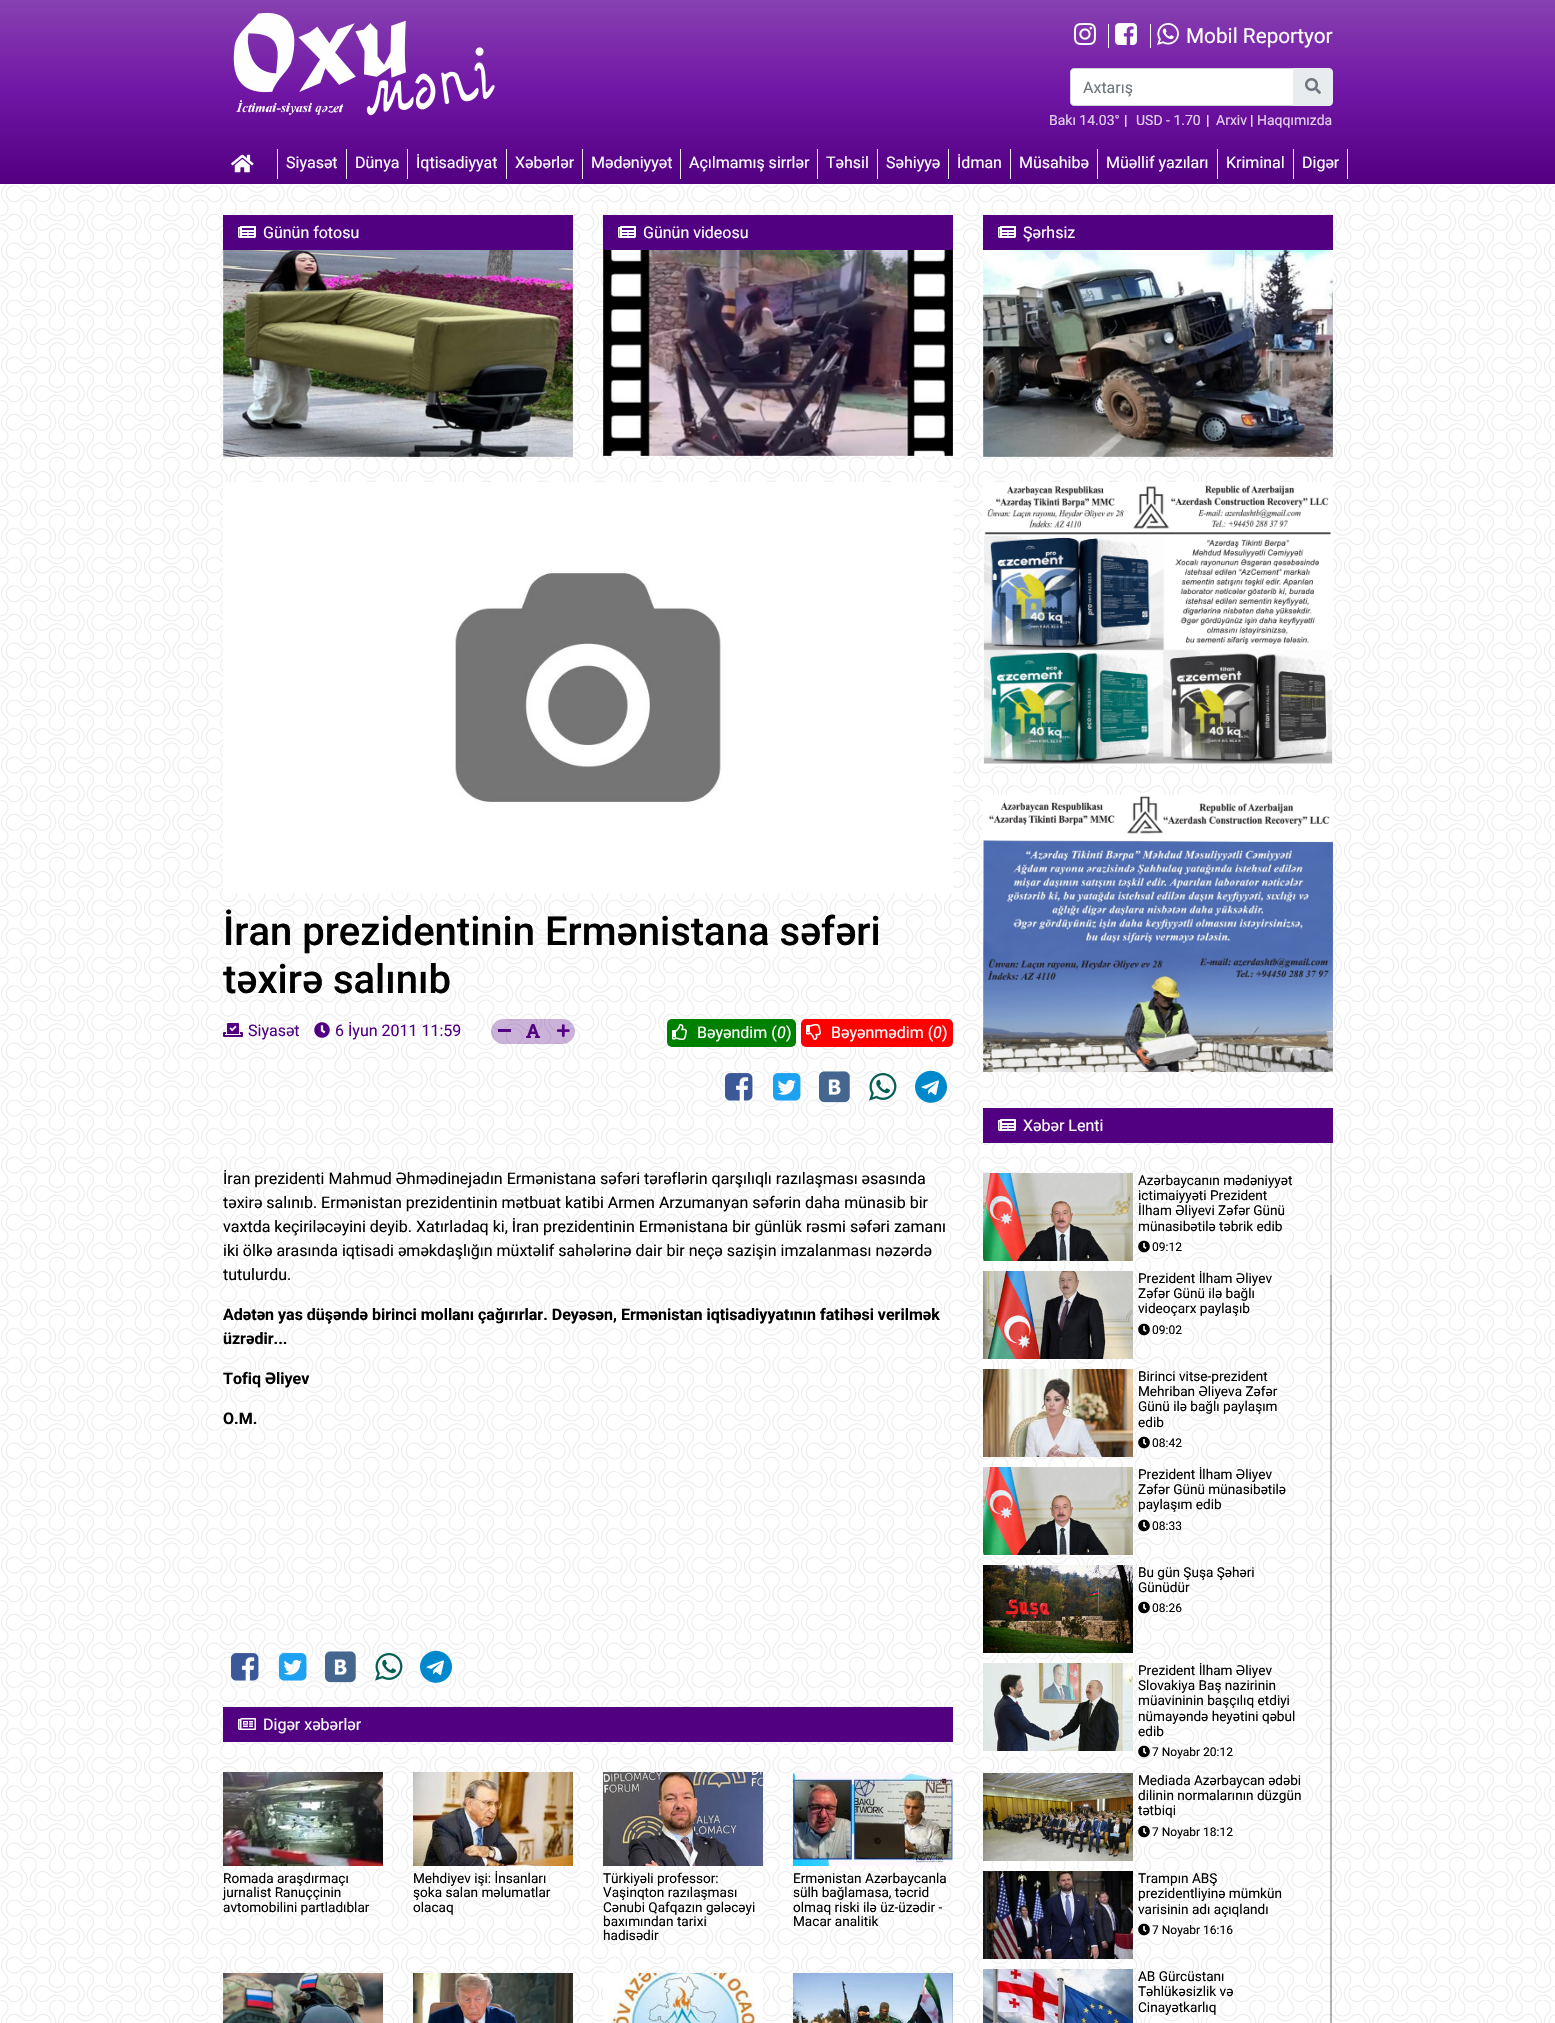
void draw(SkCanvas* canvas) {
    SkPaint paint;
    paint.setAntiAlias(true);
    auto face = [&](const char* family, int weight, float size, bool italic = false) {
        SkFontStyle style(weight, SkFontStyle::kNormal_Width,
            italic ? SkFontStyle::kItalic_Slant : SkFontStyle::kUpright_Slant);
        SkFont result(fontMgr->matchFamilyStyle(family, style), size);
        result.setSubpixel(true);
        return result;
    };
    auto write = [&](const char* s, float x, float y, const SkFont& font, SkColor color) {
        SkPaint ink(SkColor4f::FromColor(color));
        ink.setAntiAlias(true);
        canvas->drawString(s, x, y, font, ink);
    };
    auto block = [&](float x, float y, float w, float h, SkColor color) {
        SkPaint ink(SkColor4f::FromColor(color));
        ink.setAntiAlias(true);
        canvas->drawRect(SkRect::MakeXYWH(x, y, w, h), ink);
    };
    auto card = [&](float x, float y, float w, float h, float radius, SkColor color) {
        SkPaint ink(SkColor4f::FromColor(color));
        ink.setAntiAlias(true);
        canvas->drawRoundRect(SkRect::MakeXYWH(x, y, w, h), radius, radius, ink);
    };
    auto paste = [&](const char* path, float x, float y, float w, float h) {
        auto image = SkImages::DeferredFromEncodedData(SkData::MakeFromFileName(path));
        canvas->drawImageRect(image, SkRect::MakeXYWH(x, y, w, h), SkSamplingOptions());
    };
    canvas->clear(SK_ColorWHITE);
    paste("pic1.png", 0, 184, 1555, 1839);
    {
        const SkColor colors[] = {SkColorSetRGB(82, 0, 130), SkColorSetRGB(113, 22, 166), SkColorSetRGB(135, 65, 176)};
        const float stops[] = {0, 0.5f, 1};
        const SkPoint ends[] = {{778, 181}, {778, 0}};
        paint.setShader(SkGradientShader::MakeLinear(ends, colors, stops, 3, SkTileMode::kClamp));
        paint.setAlpha(255);
    }
    canvas->drawRect(SkRect::MakeXYWH(0, 0, 1555, 181), paint);
    block(0, 181, 1555, 3, SkColorSetRGB(82, 0, 130));
    paste("pic2.png", 233, 12, 262, 104);
    block(1108, 24, 1, 24, SK_ColorWHITE);
    paste("pic3.png", 1074, 23, 22, 22);
    block(1150, 24, 1, 24, SK_ColorWHITE);
    paste("pic4.png", 1115, 23, 22, 22);
    paste("pic5.png", 1157, 23, 22, 22);
    auto kFont1 = face("Roboto", 400, 20.75f);
    write("Mobil Reportyor", 1186, 43, kFont1, SK_ColorWHITE);
    paint.setShader(nullptr);
    paint.setColor(SK_ColorWHITE);
    canvas->drawPath(SkPathBuilder().moveTo(1074, 68.5f).lineTo(1293.5f, 68.5f).lineTo(1293.5f, 105.5f).lineTo(1074, 105.5f).cubicTo(1072, 105.5f, 1070.5f, 104, 1070.5f, 102).lineTo(1070.5f, 72).cubicTo(1070.5f, 70, 1072, 68.5f, 1074, 68.5f).close().detach(), paint);
    paint.setStyle(SkPaint::kStroke_Style);
    paint.setStrokeWidth(1);
    paint.setColor(SkColorSetRGB(206, 212, 218));
    canvas->drawPath(SkPathBuilder().moveTo(1074, 68.5f).lineTo(1293.5f, 68.5f).lineTo(1293.5f, 105.5f).lineTo(1074, 105.5f).cubicTo(1072, 105.5f, 1070.5f, 104, 1070.5f, 102).lineTo(1070.5f, 72).cubicTo(1070.5f, 70, 1072, 68.5f, 1074, 68.5f).close().detach(), paint);
    auto kFont2 = face("Roboto", 400, 16);
    write("Axtarış", 1083, 93, kFont2, SkColorSetRGB(108, 117, 125));
    paint.setStyle(SkPaint::kFill_Style);
    paint.setColor(SkColorSetRGB(233, 236, 239));
    canvas->drawPath(SkPathBuilder().moveTo(1293, 68).lineTo(1329, 68).cubicTo(1331, 68, 1333, 70, 1333, 72).lineTo(1333, 102).cubicTo(1333, 104, 1331, 106, 1329, 106).lineTo(1293, 106).close().detach(), paint);
    paste("pic6.png", 1305, 78, 16, 16);
    canvas->save();
    canvas->clipRect(SkRect::MakeXYWH(1020, 106, 100, 19));
    auto kFont3 = face("Roboto", 400, 14);
    write("Bakı 14.03°", 1049, 125, kFont3, SkColorSetRGB(225, 207, 235));
    canvas->restore();
    write("|", 1124, 125, kFont3, SK_ColorWHITE);
    canvas->save();
    canvas->clipRect(SkRect::MakeXYWH(1134, 106, 68, 19));
    write("USD - 1.70", 1136, 125, kFont3, SkColorSetRGB(225, 207, 235));
    canvas->restore();
    write("|", 1206, 125, kFont3, SK_ColorWHITE);
    write("Arxiv", 1216, 125, kFont3, SkColorSetRGB(225, 207, 235));
    write("|", 1250, 125, kFont3, SK_ColorWHITE);
    write("Haqqımızda", 1257, 125, kFont3, SkColorSetRGB(225, 207, 235));
    block(277, 149, 1, 30, SkColorSetRGB(238, 238, 238));
    paste("pic7.png", 231, 154, 23, 19);
    block(346, 149, 1, 30, SkColorSetRGB(238, 238, 238));
    write("Siyasət", 286, 168, kFont2, SK_ColorWHITE);
    block(407, 149, 1, 30, SkColorSetRGB(238, 238, 238));
    write("Dünya", 355, 168, kFont2, SK_ColorWHITE);
    block(506, 149, 1, 30, SkColorSetRGB(238, 238, 238));
    write("İqtisadiyyat", 416, 168, kFont2, SK_ColorWHITE);
    block(582, 149, 1, 30, SkColorSetRGB(238, 238, 238));
    write("Xəbərlər", 515, 168, kFont2, SK_ColorWHITE);
    block(680, 149, 1, 30, SkColorSetRGB(238, 238, 238));
    write("Mədəniyyət", 591, 168, kFont2, SK_ColorWHITE);
    block(817, 149, 1, 30, SkColorSetRGB(238, 238, 238));
    write("Açılmamış sirrlər", 689, 168, kFont2, SK_ColorWHITE);
    block(877, 149, 1, 30, SkColorSetRGB(238, 238, 238));
    write("Təhsil", 826, 168, kFont2, SK_ColorWHITE);
    block(948, 149, 1, 30, SkColorSetRGB(238, 238, 238));
    write("Səhiyyə", 886, 168, kFont2, SK_ColorWHITE);
    block(1010, 149, 1, 30, SkColorSetRGB(238, 238, 238));
    write("İdman", 957, 168, kFont2, SK_ColorWHITE);
    block(1097, 149, 1, 30, SkColorSetRGB(238, 238, 238));
    write("Müsahibə", 1019, 168, kFont2, SK_ColorWHITE);
    block(1217, 149, 1, 30, SkColorSetRGB(238, 238, 238));
    write("Müəllif yazıları", 1106, 168, kFont2, SK_ColorWHITE);
    block(1293, 149, 1, 30, SkColorSetRGB(238, 238, 238));
    write("Kriminal", 1226, 168, kFont2, SK_ColorWHITE);
    block(1347, 149, 1, 30, SkColorSetRGB(238, 238, 238));
    write("Digər", 1302, 168, kFont2, SK_ColorWHITE);
    block(223, 215, 350, 35, SkColorSetRGB(82, 0, 130));
    paste("pic8.png", 238, 226, 18, 12);
    write("Günün fotosu", 263, 238, kFont2, SK_ColorWHITE);
    paste("pic9.png", 223, 250, 350, 207);
    paste("pic10.png", 572, 251, 1, 204);
    block(603, 215, 350, 35, SkColorSetRGB(82, 0, 130));
    paste("pic8.png", 618, 226, 18, 12);
    write("Günün videosu", 643, 238, kFont2, SK_ColorWHITE);
    paste("pic11.png", 603, 250, 350, 206);
    block(983, 215, 350, 35, SkColorSetRGB(82, 0, 130));
    paste("pic8.png", 998, 226, 18, 12);
    write("Şərhsiz", 1023, 238, kFont2, SK_ColorWHITE);
    paste("pic12.png", 983, 250, 350, 207);
    paste("pic13.png", 1332, 270, 1, 187);
    paste("pic14.png", 223, 482, 730, 411);
    auto kFont4 = face("Roboto", 500, 40);
    write("İran prezidentinin Ermənistana səfəri", 223, 945, kFont4, SK_ColorBLACK);
    write("təxirə salınıb", 223, 993, kFont4, SK_ColorBLACK);
    paste("pic15.png", 223, 1023, 20, 14);
    write("Siyasət", 248, 1036, kFont2, SkColorSetRGB(82, 0, 130));
    paste("pic16.png", 314, 1022, 16, 16);
    write("6 İyun 2011 11:59", 335, 1036, kFont2, SkColorSetRGB(82, 0, 130));
    card(491, 1019, 84, 25, 12.5f, SkColorSetARGB(77, 82, 0, 130));
    block(498, 1029, 13, 3, SkColorSetRGB(82, 0, 130));
    paste("pic17.png", 526, 1024, 14, 14);
    paste("pic18.png", 557, 1024, 13, 13);
    card(667, 1019, 129, 28, 5, SkColorSetRGB(0, 128, 0));
    paste("pic19.png", 672, 1024, 15, 16);
    write("Bəyəndim (", 697, 1038, kFont2, SK_ColorWHITE);
    auto kFont5 = face("Roboto", 400, 16, true);
    write("0", 777, 1038, kFont5, SK_ColorWHITE);
    write(")", 786, 1038, kFont2, SK_ColorWHITE);
    card(801, 1019, 152, 28, 5, SkColorSetRGB(255, 0, 0));
    paste("pic20.png", 806, 1024, 15, 16);
    write("Bəyənmədim (", 831, 1038, kFont2, SK_ColorWHITE);
    write("0", 933, 1038, kFont5, SK_ColorWHITE);
    write(")", 942, 1038, kFont2, SK_ColorWHITE);
    paste("pic21.png", 725, 1073, 28, 28);
    paste("pic22.png", 773, 1073, 28, 28);
    paste("pic23.png", 819, 1071, 31, 32);
    paste("pic24.png", 869, 1073, 28, 28);
    paste("pic25.png", 915, 1070, 32, 33);
    write("İran prezidenti Mahmud Əhmədinejadın Ermənistana səfəri tərəflərin qarşılıqlı razılaşması əsasında", 223, 1184, kFont2, SK_ColorBLACK);
    write("təxirə salınıb. Ermənistan prezidentinin mətbuat katibi Armen Arzumanyan səfərin daha münasib bir", 223, 1208, kFont2, SK_ColorBLACK);
    write("vaxtda keçiriləcəyini deyib. Xatırladaq ki, İran prezidentinin Ermənistana bir günlük rəsmi səfəri zamanı", 223, 1232, kFont2, SK_ColorBLACK);
    write("iki ölkə arasında iqtisadi əməkdaşlığın müxtəlif sahələrinə dair bir neçə sazişin imzalanması nəzərdə", 223, 1256, kFont2, SK_ColorBLACK);
    write("tutulurdu.", 223, 1280, kFont2, SK_ColorBLACK);
    auto kFont6 = face("Roboto", 700, 16);
    write("Adətən yas düşəndə birinci mollanı çağırırlar. Deyəsən, Ermənistan iqtisadiyyatının fatihəsi verilmək", 223, 1320, kFont6, SK_ColorBLACK);
    write("üzrədir...", 223, 1344, kFont6, SK_ColorBLACK);
    write("Tofiq Əliyev", 223, 1384, kFont6, SK_ColorBLACK);
    write("O.M.", 223, 1424, kFont6, SK_ColorBLACK);
    paste("pic26.png", 231, 1653, 28, 28);
    paste("pic27.png", 279, 1653, 28, 28);
    paste("pic28.png", 325, 1651, 31, 32);
    paste("pic29.png", 375, 1653, 28, 28);
    paste("pic30.png", 420, 1650, 32, 33);
    block(223, 1707, 730, 35, SkColorSetRGB(82, 0, 130));
    paste("pic31.png", 238, 1718, 18, 12);
    write("Digər xəbərlər", 263, 1730, kFont2, SK_ColorWHITE);
    paste("pic32.png", 223, 1772, 160, 94);
    auto kFont7 = face("Roboto", 400, 13.6f);
    write("Romada araşdırmaçı", 223, 1883, kFont7, SK_ColorBLACK);
    write("jurnalist Ranuççinin", 223, 1897, kFont7, SK_ColorBLACK);
    write("avtomobilini partladıblar", 223, 1912, kFont7, SK_ColorBLACK);
    paste("pic33.png", 413, 1772, 160, 94);
    write("Mehdiyev işi: İnsanları", 413, 1883, kFont7, SK_ColorBLACK);
    write("şoka salan məlumatlar", 413, 1897, kFont7, SK_ColorBLACK);
    write("olacaq", 413, 1912, kFont7, SK_ColorBLACK);
    paste("pic34.png", 603, 1772, 160, 94);
    write("Türkiyəli professor:", 603, 1883, kFont7, SK_ColorBLACK);
    write("Vaşinqton razılaşması", 603, 1897, kFont7, SK_ColorBLACK);
    write("Cənubi Qafqazın gələcəyi", 603, 1912, kFont7, SK_ColorBLACK);
    write("baxımından tarixi", 603, 1926, kFont7, SK_ColorBLACK);
    write("hadisədir", 603, 1940, kFont7, SK_ColorBLACK);
    paste("pic35.png", 793, 1772, 160, 94);
    write("Ermənistan Azərbaycanla", 793, 1883, kFont7, SK_ColorBLACK);
    write("sülh bağlamasa, təcrid", 793, 1897, kFont7, SK_ColorBLACK);
    write("olmaq riski ilə üz-üzədir -", 793, 1912, kFont7, SK_ColorBLACK);
    write("Macar analitik", 793, 1926, kFont7, SK_ColorBLACK);
    paste("pic36.png", 223, 1973, 160, 50);
    paste("pic37.png", 413, 1973, 160, 50);
    paste("pic38.png", 603, 1973, 160, 50);
    paste("pic39.png", 793, 1973, 160, 50);
    paste("pic40.png", 983, 482, 350, 282);
    paste("pic41.png", 983, 795, 350, 277);
    block(983, 1108, 350, 35, SkColorSetRGB(82, 0, 130));
    paste("pic8.png", 998, 1119, 18, 12);
    write("Xəbər Lenti", 1023, 1131, kFont2, SK_ColorWHITE);
    paste("pic42.png", 983, 1173, 150, 88);
    write("Azərbaycanın mədəniyyət", 1138, 1185, kFont7, SK_ColorBLACK);
    write("ictimaiyyəti Prezident", 1138, 1200, kFont7, SK_ColorBLACK);
    write("İlham Əliyevi Zəfər Günü", 1138, 1215, kFont7, SK_ColorBLACK);
    write("münasibətilə təbrik edib", 1138, 1231, kFont7, SK_ColorBLACK);
    paste("pic43.png", 1138, 1240, 12, 13);
    auto kFont8 = face("Roboto", 400, 12);
    write("09:12", 1152, 1251, kFont8, SK_ColorBLACK);
    paste("pic44.png", 983, 1271, 150, 88);
    write("Prezident İlham Əliyev", 1138, 1283, kFont7, SK_ColorBLACK);
    write("Zəfər Günü ilə bağlı", 1138, 1298, kFont7, SK_ColorBLACK);
    write("videoçarx paylaşıb", 1138, 1313, kFont7, SK_ColorBLACK);
    paste("pic45.png", 1138, 1323, 12, 13);
    write("09:02", 1152, 1334, kFont8, SK_ColorBLACK);
    paste("pic46.png", 983, 1369, 150, 88);
    write("Birinci vitse-prezident", 1138, 1381, kFont7, SK_ColorBLACK);
    write("Mehriban Əliyeva Zəfər", 1138, 1396, kFont7, SK_ColorBLACK);
    write("Günü ilə bağlı paylaşım", 1138, 1411, kFont7, SK_ColorBLACK);
    write("edib", 1138, 1427, kFont7, SK_ColorBLACK);
    paste("pic47.png", 1138, 1436, 12, 13);
    write("08:42", 1152, 1447, kFont8, SK_ColorBLACK);
    paste("pic42.png", 983, 1467, 150, 88);
    write("Prezident İlham Əliyev", 1138, 1479, kFont7, SK_ColorBLACK);
    write("Zəfər Günü münasibətilə", 1138, 1494, kFont7, SK_ColorBLACK);
    write("paylaşım edib", 1138, 1509, kFont7, SK_ColorBLACK);
    paste("pic48.png", 1138, 1519, 12, 13);
    write("08:33", 1152, 1530, kFont8, SK_ColorBLACK);
    paste("pic49.png", 983, 1565, 150, 88);
    write("Bu gün Şuşa Şəhəri", 1138, 1577, kFont7, SK_ColorBLACK);
    write("Günüdür", 1138, 1592, kFont7, SK_ColorBLACK);
    paste("pic50.png", 1138, 1601, 12, 13);
    write("08:26", 1152, 1612, kFont8, SK_ColorBLACK);
    paste("pic51.png", 983, 1663, 150, 88);
    write("Prezident İlham Əliyev", 1138, 1675, kFont7, SK_ColorBLACK);
    write("Slovakiya Baş nazirinin", 1138, 1690, kFont7, SK_ColorBLACK);
    write("müavininin başçılıq etdiyi", 1138, 1705, kFont7, SK_ColorBLACK);
    write("nümayəndə heyətini qəbul", 1138, 1721, kFont7, SK_ColorBLACK);
    write("edib", 1138, 1736, kFont7, SK_ColorBLACK);
    paste("pic52.png", 1138, 1745, 12, 13);
    write("7 Noyabr 20:12", 1152, 1756, kFont8, SK_ColorBLACK);
    paste("pic53.png", 983, 1773, 150, 88);
    write("Mediada Azərbaycan ədəbi", 1138, 1785, kFont7, SK_ColorBLACK);
    write("dilinin normalarının düzgün", 1138, 1800, kFont7, SK_ColorBLACK);
    write("tətbiqi", 1138, 1815, kFont7, SK_ColorBLACK);
    paste("pic54.png", 1138, 1825, 12, 13);
    write("7 Noyabr 18:12", 1152, 1836, kFont8, SK_ColorBLACK);
    paste("pic55.png", 983, 1871, 150, 88);
    write("Trampın ABŞ", 1138, 1883, kFont7, SK_ColorBLACK);
    write("prezidentliyinə mümkün", 1138, 1898, kFont7, SK_ColorBLACK);
    write("varisinin adı açıqlandı", 1138, 1914, kFont7, SK_ColorBLACK);
    paste("pic56.png", 1138, 1923, 12, 13);
    write("7 Noyabr 16:16", 1152, 1934, kFont8, SK_ColorBLACK);
    paste("pic57.png", 983, 1969, 150, 54);
    write("AB Gürcüstanı", 1138, 1981, kFont7, SK_ColorBLACK);
    write("Təhlükəsizlik və", 1138, 1996, kFont7, SK_ColorBLACK);
    write("Cinayətkarlıq", 1138, 2012, kFont7, SK_ColorBLACK);
    card(1330, 1143, 2, 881, 1, SkColorSetARGB(77, 0, 0, 0));
    card(1329, 1143, 4, 132, 2, SkColorSetARGB(143, 255, 255, 255));
}
